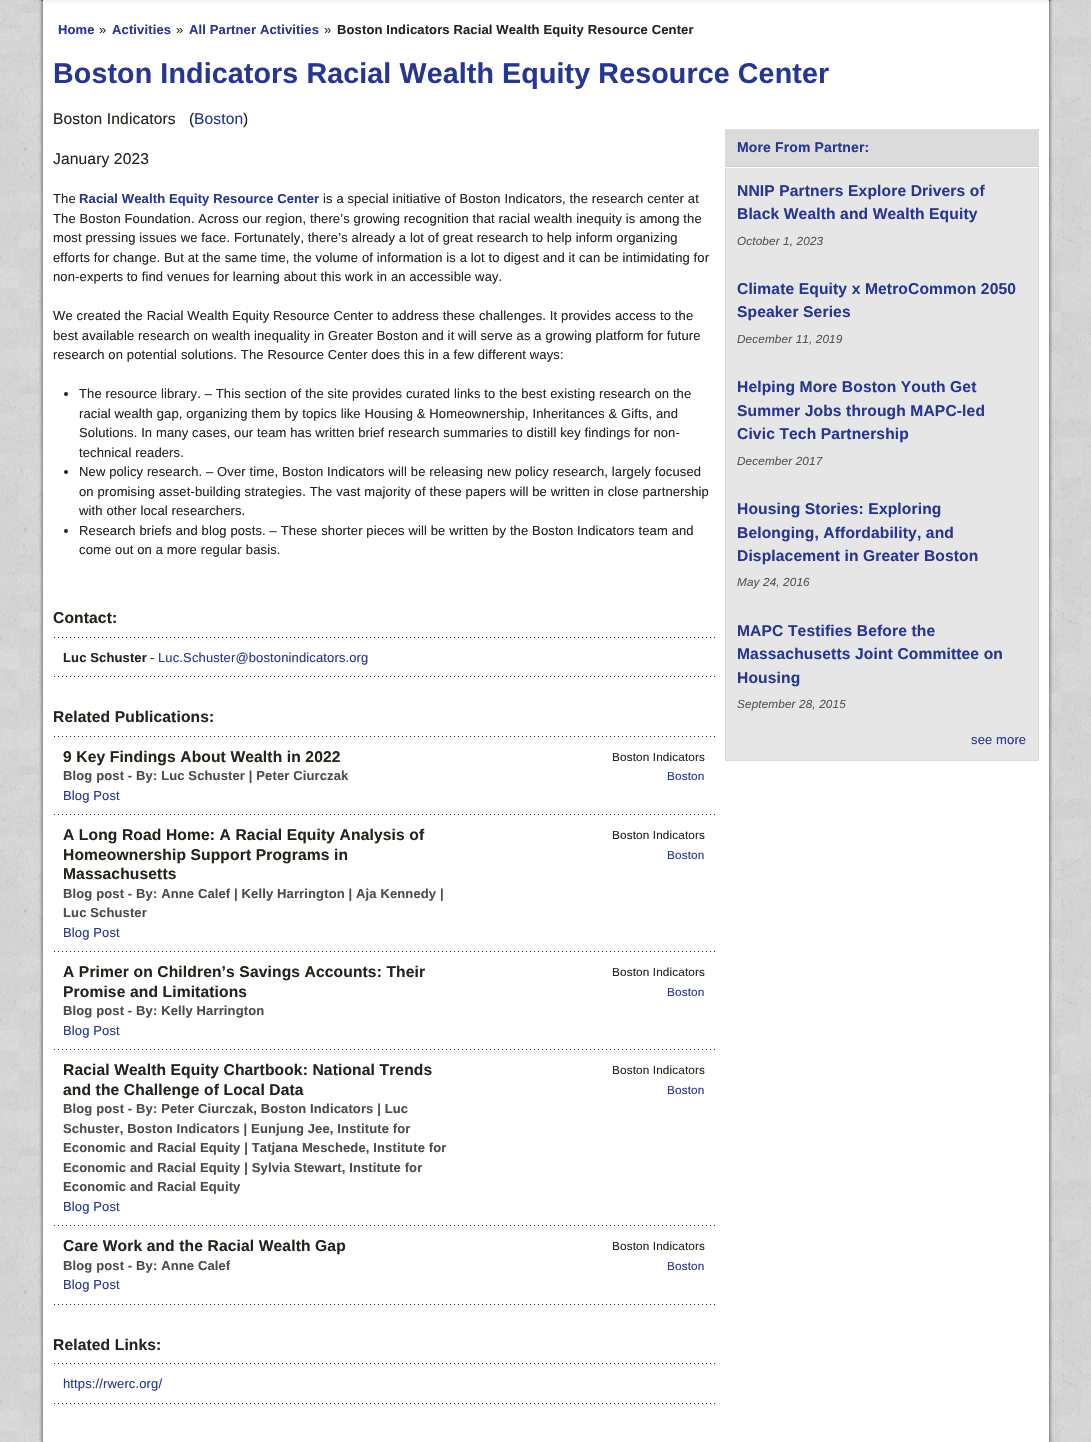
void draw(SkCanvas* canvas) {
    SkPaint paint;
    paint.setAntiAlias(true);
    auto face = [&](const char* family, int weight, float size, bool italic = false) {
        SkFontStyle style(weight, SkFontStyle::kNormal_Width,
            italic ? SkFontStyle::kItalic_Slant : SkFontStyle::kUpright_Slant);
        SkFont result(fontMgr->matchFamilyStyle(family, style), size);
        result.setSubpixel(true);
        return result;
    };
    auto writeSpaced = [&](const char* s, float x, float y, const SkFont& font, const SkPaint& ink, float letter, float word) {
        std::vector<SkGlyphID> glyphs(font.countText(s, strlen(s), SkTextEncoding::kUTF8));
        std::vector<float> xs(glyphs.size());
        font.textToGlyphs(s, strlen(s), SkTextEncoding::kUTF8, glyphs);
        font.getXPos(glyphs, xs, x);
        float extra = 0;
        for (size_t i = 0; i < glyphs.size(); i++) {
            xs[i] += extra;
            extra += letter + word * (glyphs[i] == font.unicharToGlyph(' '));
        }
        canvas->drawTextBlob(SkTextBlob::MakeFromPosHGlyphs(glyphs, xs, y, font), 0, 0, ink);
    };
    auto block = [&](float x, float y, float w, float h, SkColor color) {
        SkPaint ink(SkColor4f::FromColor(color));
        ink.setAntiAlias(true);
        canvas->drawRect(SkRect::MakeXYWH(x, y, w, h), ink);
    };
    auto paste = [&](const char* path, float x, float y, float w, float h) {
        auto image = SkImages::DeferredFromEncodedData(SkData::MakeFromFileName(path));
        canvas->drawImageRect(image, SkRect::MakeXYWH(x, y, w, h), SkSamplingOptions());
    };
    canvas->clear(SK_ColorWHITE);
    paste("pic1.png", 0, 0, 1091, 1442);
    paste("pic2.png", 39, 0, 1014, 1442);
    paste("pic3.png", 28, 0, 1035, 3);
    auto kFont1 = face("Liberation Sans", 700, 13);
    paint.setColor(SkColorSetRGB(38, 54, 146));
    writeSpaced("Home", 58, 34, kFont1, paint, 0.13f, 0);
    auto kFont2 = face("Liberation Sans", 400, 13);
    paint.setColor(SkColorSetRGB(36, 36, 29));
    writeSpaced("»", 99, 34, kFont2, paint, 0.13f, 0);
    paint.setColor(SkColorSetRGB(38, 54, 146));
    writeSpaced("Activities", 112, 34, kFont1, paint, 0.13f, 0);
    paint.setColor(SkColorSetRGB(36, 36, 29));
    writeSpaced("»", 176, 34, kFont2, paint, 0.13f, 0);
    paint.setColor(SkColorSetRGB(38, 54, 146));
    writeSpaced("All Partner Activities", 189, 34, kFont1, paint, 0.13f, 0);
    paint.setColor(SkColorSetRGB(36, 36, 29));
    writeSpaced("»", 324, 34, kFont2, paint, 0.13f, 0);
    writeSpaced("Boston Indicators Racial Wealth Equity Resource Center", 337, 34, kFont1, paint, 0.13f, 0);
    auto kFont3 = face("Liberation Sans", 700, 28.6f);
    paint.setColor(SkColorSetRGB(38, 54, 146));
    writeSpaced("Boston Indicators Racial Wealth Equity Resource Center", 53, 83, kFont3, paint, 0.13f, 0);
    auto kFont4 = face("Liberation Sans", 400, 15.6f);
    paint.setColor(SkColorSetRGB(36, 36, 29));
    writeSpaced("Boston Indicators", 53, 124, kFont4, paint, 0.13f, 0);
    writeSpaced("(", 189, 124, kFont4, paint, 0.13f, 0);
    paint.setColor(SkColorSetRGB(38, 54, 146));
    writeSpaced("Boston", 194, 124, kFont4, paint, 0.13f, 0);
    paint.setColor(SkColorSetRGB(36, 36, 29));
    writeSpaced(")", 243, 124, kFont4, paint, 0.13f, 0);
    writeSpaced("January 2023", 53, 164, kFont4, paint, 0.13f, 0);
    writeSpaced("The", 53, 203, kFont2, paint, 0.13f, 0);
    paint.setColor(SkColorSetRGB(38, 54, 146));
    writeSpaced("Racial Wealth Equity Resource Center", 79, 203, kFont1, paint, 0.13f, 0);
    paint.setColor(SkColorSetRGB(36, 36, 29));
    writeSpaced("is a special initiative of Boston Indicators, the research center at", 323, 203, kFont2, paint, 0.13f, 0);
    writeSpaced("The Boston Foundation. Across our region, there’s growing recognition that racial wealth inequity is among the", 53, 223, kFont2, paint, 0.13f, 0);
    writeSpaced("most pressing issues we face. Fortunately, there’s already a lot of great research to help inform organizing", 53, 242, kFont2, paint, 0.13f, 0);
    writeSpaced("efforts for change. But at the same time, the volume of information is a lot to digest and it can be intimidating for", 53, 262, kFont2, paint, 0.13f, 0);
    writeSpaced("non-experts to find venues for learning about this work in an accessible way.", 53, 281, kFont2, paint, 0.13f, 0);
    writeSpaced("We created the Racial Wealth Equity Resource Center to address these challenges. It provides access to the", 53, 320, kFont2, paint, 0.13f, 0);
    writeSpaced("best available research on wealth inequality in Greater Boston and it will serve as a growing platform for future", 53, 340, kFont2, paint, 0.13f, 0);
    writeSpaced("research on potential solutions. The Resource Center does this in a few different ways:", 53, 359, kFont2, paint, 0.13f, 0);
    canvas->drawCircle(66, 394, 2, paint);
    writeSpaced("The resource library. – This section of the site provides curated links to the best existing research on the", 79, 398, kFont2, paint, 0.13f, 0);
    writeSpaced("racial wealth gap, organizing them by topics like Housing & Homeownership, Inheritances & Gifts, and", 79, 418, kFont2, paint, 0.13f, 0);
    writeSpaced("Solutions. In many cases, our team has written brief research summaries to distill key findings for non-", 79, 437, kFont2, paint, 0.13f, 0);
    writeSpaced("technical readers.", 79, 457, kFont2, paint, 0.13f, 0);
    canvas->drawCircle(66, 472, 2, paint);
    writeSpaced("New policy research. – Over time, Boston Indicators will be releasing new policy research, largely focused", 79, 476, kFont2, paint, 0.13f, 0);
    writeSpaced("on promising asset-building strategies. The vast majority of these papers will be written in close partnership", 79, 496, kFont2, paint, 0.13f, 0);
    writeSpaced("with other local researchers.", 79, 515, kFont2, paint, 0.13f, 0);
    canvas->drawCircle(66, 531, 2, paint);
    writeSpaced("Research briefs and blog posts. – These shorter pieces will be written by the Boston Indicators team and", 79, 535, kFont2, paint, 0.13f, 0);
    writeSpaced("come out on a more regular basis.", 79, 554, kFont2, paint, 0.13f, 0);
    paste("pic4.png", 54, 637, 661, 1);
    auto kFont5 = face("Liberation Sans", 700, 15.6f);
    writeSpaced("Contact:", 53, 623, kFont5, paint, 0.13f, 0);
    paste("pic4.png", 54, 676, 661, 1);
    writeSpaced("Luc Schuster", 63, 662, kFont1, paint, 0.13f, 0);
    writeSpaced("-", 150, 662, kFont2, paint, 0.13f, 0);
    paint.setColor(SkColorSetRGB(38, 54, 146));
    writeSpaced("Luc.Schuster@bostonindicators.org", 158, 662, kFont2, paint, 0.13f, 0);
    paste("pic4.png", 54, 736, 661, 1);
    paint.setColor(SkColorSetRGB(36, 36, 29));
    writeSpaced("Related Publications:", 53, 722, kFont5, paint, 0.13f, 0);
    paste("pic4.png", 54, 814, 661, 1);
    writeSpaced("9 Key Findings About Wealth in 2022", 63, 762, kFont5, paint, 0.13f, 0);
    paint.setColor(SkColorSetRGB(75, 77, 76));
    writeSpaced("Blog post - By: Luc Schuster | Peter Ciurczak", 63, 780, kFont1, paint, 0.13f, 0);
    paint.setColor(SkColorSetRGB(38, 54, 146));
    writeSpaced("Blog Post", 63, 800, kFont2, paint, 0.13f, 0);
    auto kFont6 = face("Liberation Sans", 400, 11.75f);
    paint.setColor(SkColorSetRGB(36, 36, 29));
    writeSpaced("Boston Indicators", 612, 761, kFont6, paint, 0.13f, 0);
    paint.setColor(SkColorSetRGB(38, 54, 146));
    writeSpaced("Boston", 667, 780, kFont6, paint, 0.13f, 0);
    paste("pic4.png", 54, 951, 661, 1);
    paint.setColor(SkColorSetRGB(36, 36, 29));
    writeSpaced("A Long Road Home: A Racial Equity Analysis of", 63, 840, kFont5, paint, 0.13f, 0);
    writeSpaced("Homeownership Support Programs in", 63, 860, kFont5, paint, 0.13f, 0);
    writeSpaced("Massachusetts", 63, 879, kFont5, paint, 0.13f, 0);
    paint.setColor(SkColorSetRGB(75, 77, 76));
    writeSpaced("Blog post - By: Anne Calef | Kelly Harrington | Aja Kennedy |", 63, 898, kFont1, paint, 0.13f, 0);
    writeSpaced("Luc Schuster", 63, 917, kFont1, paint, 0.13f, 0);
    paint.setColor(SkColorSetRGB(38, 54, 146));
    writeSpaced("Blog Post", 63, 937, kFont2, paint, 0.13f, 0);
    paint.setColor(SkColorSetRGB(36, 36, 29));
    writeSpaced("Boston Indicators", 612, 839, kFont6, paint, 0.13f, 0);
    paint.setColor(SkColorSetRGB(38, 54, 146));
    writeSpaced("Boston", 667, 859, kFont6, paint, 0.13f, 0);
    paste("pic4.png", 54, 1049, 661, 1);
    paint.setColor(SkColorSetRGB(36, 36, 29));
    writeSpaced("A Primer on Children’s Savings Accounts: Their", 63, 977, kFont5, paint, 0.13f, 0);
    writeSpaced("Promise and Limitations", 63, 997, kFont5, paint, 0.13f, 0);
    paint.setColor(SkColorSetRGB(75, 77, 76));
    writeSpaced("Blog post - By: Kelly Harrington", 63, 1015, kFont1, paint, 0.13f, 0);
    paint.setColor(SkColorSetRGB(38, 54, 146));
    writeSpaced("Blog Post", 63, 1035, kFont2, paint, 0.13f, 0);
    paint.setColor(SkColorSetRGB(36, 36, 29));
    writeSpaced("Boston Indicators", 612, 976, kFont6, paint, 0.13f, 0);
    paint.setColor(SkColorSetRGB(38, 54, 146));
    writeSpaced("Boston", 667, 996, kFont6, paint, 0.13f, 0);
    paste("pic4.png", 54, 1225, 661, 1);
    paint.setColor(SkColorSetRGB(36, 36, 29));
    writeSpaced("Racial Wealth Equity Chartbook: National Trends", 63, 1075, kFont5, paint, 0.13f, 0);
    writeSpaced("and the Challenge of Local Data", 63, 1095, kFont5, paint, 0.13f, 0);
    paint.setColor(SkColorSetRGB(75, 77, 76));
    writeSpaced("Blog post - By: Peter Ciurczak, Boston Indicators | Luc", 63, 1113, kFont1, paint, 0.13f, 0);
    writeSpaced("Schuster, Boston Indicators | Eunjung Jee, Institute for", 63, 1133, kFont1, paint, 0.13f, 0);
    writeSpaced("Economic and Racial Equity | Tatjana Meschede, Institute for", 63, 1152, kFont1, paint, 0.13f, 0);
    writeSpaced("Economic and Racial Equity | Sylvia Stewart, Institute for", 63, 1172, kFont1, paint, 0.13f, 0);
    writeSpaced("Economic and Racial Equity", 63, 1191, kFont1, paint, 0.13f, 0);
    paint.setColor(SkColorSetRGB(38, 54, 146));
    writeSpaced("Blog Post", 63, 1211, kFont2, paint, 0.13f, 0);
    paint.setColor(SkColorSetRGB(36, 36, 29));
    writeSpaced("Boston Indicators", 612, 1074, kFont6, paint, 0.13f, 0);
    paint.setColor(SkColorSetRGB(38, 54, 146));
    writeSpaced("Boston", 667, 1094, kFont6, paint, 0.13f, 0);
    paste("pic4.png", 54, 1304, 661, 1);
    paint.setColor(SkColorSetRGB(36, 36, 29));
    writeSpaced("Care Work and the Racial Wealth Gap", 63, 1251, kFont5, paint, 0.13f, 0);
    paint.setColor(SkColorSetRGB(75, 77, 76));
    writeSpaced("Blog post - By: Anne Calef", 63, 1270, kFont1, paint, 0.13f, 0);
    paint.setColor(SkColorSetRGB(38, 54, 146));
    writeSpaced("Blog Post", 63, 1289, kFont2, paint, 0.13f, 0);
    paint.setColor(SkColorSetRGB(36, 36, 29));
    writeSpaced("Boston Indicators", 612, 1250, kFont6, paint, 0.13f, 0);
    paint.setColor(SkColorSetRGB(38, 54, 146));
    writeSpaced("Boston", 667, 1270, kFont6, paint, 0.13f, 0);
    paste("pic4.png", 54, 1363, 661, 1);
    paint.setColor(SkColorSetRGB(36, 36, 29));
    writeSpaced("Related Links:", 53, 1350, kFont5, paint, 0.13f, 0);
    paste("pic4.png", 54, 1403, 661, 1);
    paint.setColor(SkColorSetRGB(38, 54, 146));
    writeSpaced("https://rwerc.org/", 63, 1388, kFont2, paint, 0.13f, 0);
    block(726, 129, 313, 37, SkColorSetRGB(219, 219, 219));
    block(725, 166, 314, 1, SkColorSetRGB(209, 209, 209));
    block(725, 129, 1, 38, SkColorSetRGB(219, 219, 219));
    auto kFont7 = face("Liberation Sans", 700, 14);
    writeSpaced("More From Partner:", 737, 152, kFont7, paint, 0.13f, 0);
    block(726, 168, 312, 592, SkColorSetRGB(230, 230, 230));
    block(1038, 168, 1, 593, SkColorSetRGB(219, 219, 219));
    block(725, 760, 314, 1, SkColorSetRGB(219, 219, 219));
    block(725, 168, 1, 593, SkColorSetRGB(219, 219, 219));
    writeSpaced("NNIP Partners Explore Drivers of", 737, 196, kFont5, paint, 0.13f, 0);
    writeSpaced("Black Wealth and Wealth Equity", 737, 219, kFont5, paint, 0.13f, 0);
    auto kFont8 = face("Liberation Sans", 400, 11.75f, true);
    paint.setColor(SkColorSetRGB(85, 85, 85));
    writeSpaced("October 1, 2023", 737, 245, kFont8, paint, 0.13f, 0);
    paint.setColor(SkColorSetRGB(38, 54, 146));
    writeSpaced("Climate Equity x MetroCommon 2050", 737, 294, kFont5, paint, 0.13f, 0);
    writeSpaced("Speaker Series", 737, 317, kFont5, paint, 0.13f, 0);
    paint.setColor(SkColorSetRGB(85, 85, 85));
    writeSpaced("December 11, 2019", 737, 343, kFont8, paint, 0.13f, 0);
    paint.setColor(SkColorSetRGB(38, 54, 146));
    writeSpaced("Helping More Boston Youth Get", 737, 392, kFont5, paint, 0.13f, 0);
    writeSpaced("Summer Jobs through MAPC-led", 737, 416, kFont5, paint, 0.13f, 0);
    writeSpaced("Civic Tech Partnership", 737, 439, kFont5, paint, 0.13f, 0);
    paint.setColor(SkColorSetRGB(85, 85, 85));
    writeSpaced("December 2017", 737, 465, kFont8, paint, 0.13f, 0);
    paint.setColor(SkColorSetRGB(38, 54, 146));
    writeSpaced("Housing Stories: Exploring", 737, 514, kFont5, paint, 0.13f, 0);
    writeSpaced("Belonging, Affordability, and", 737, 538, kFont5, paint, 0.13f, 0);
    writeSpaced("Displacement in Greater Boston", 737, 561, kFont5, paint, 0.13f, 0);
    paint.setColor(SkColorSetRGB(85, 85, 85));
    writeSpaced("May 24, 2016", 737, 586, kFont8, paint, 0.13f, 0);
    paint.setColor(SkColorSetRGB(38, 54, 146));
    writeSpaced("MAPC Testifies Before the", 737, 636, kFont5, paint, 0.13f, 0);
    writeSpaced("Massachusetts Joint Committee on", 737, 659, kFont5, paint, 0.13f, 0);
    writeSpaced("Housing", 737, 683, kFont5, paint, 0.13f, 0);
    paint.setColor(SkColorSetRGB(85, 85, 85));
    writeSpaced("September 28, 2015", 737, 708, kFont8, paint, 0.13f, 0);
    paint.setColor(SkColorSetRGB(38, 54, 146));
    writeSpaced("see more", 971, 744, kFont2, paint, 0.13f, 0);
}
